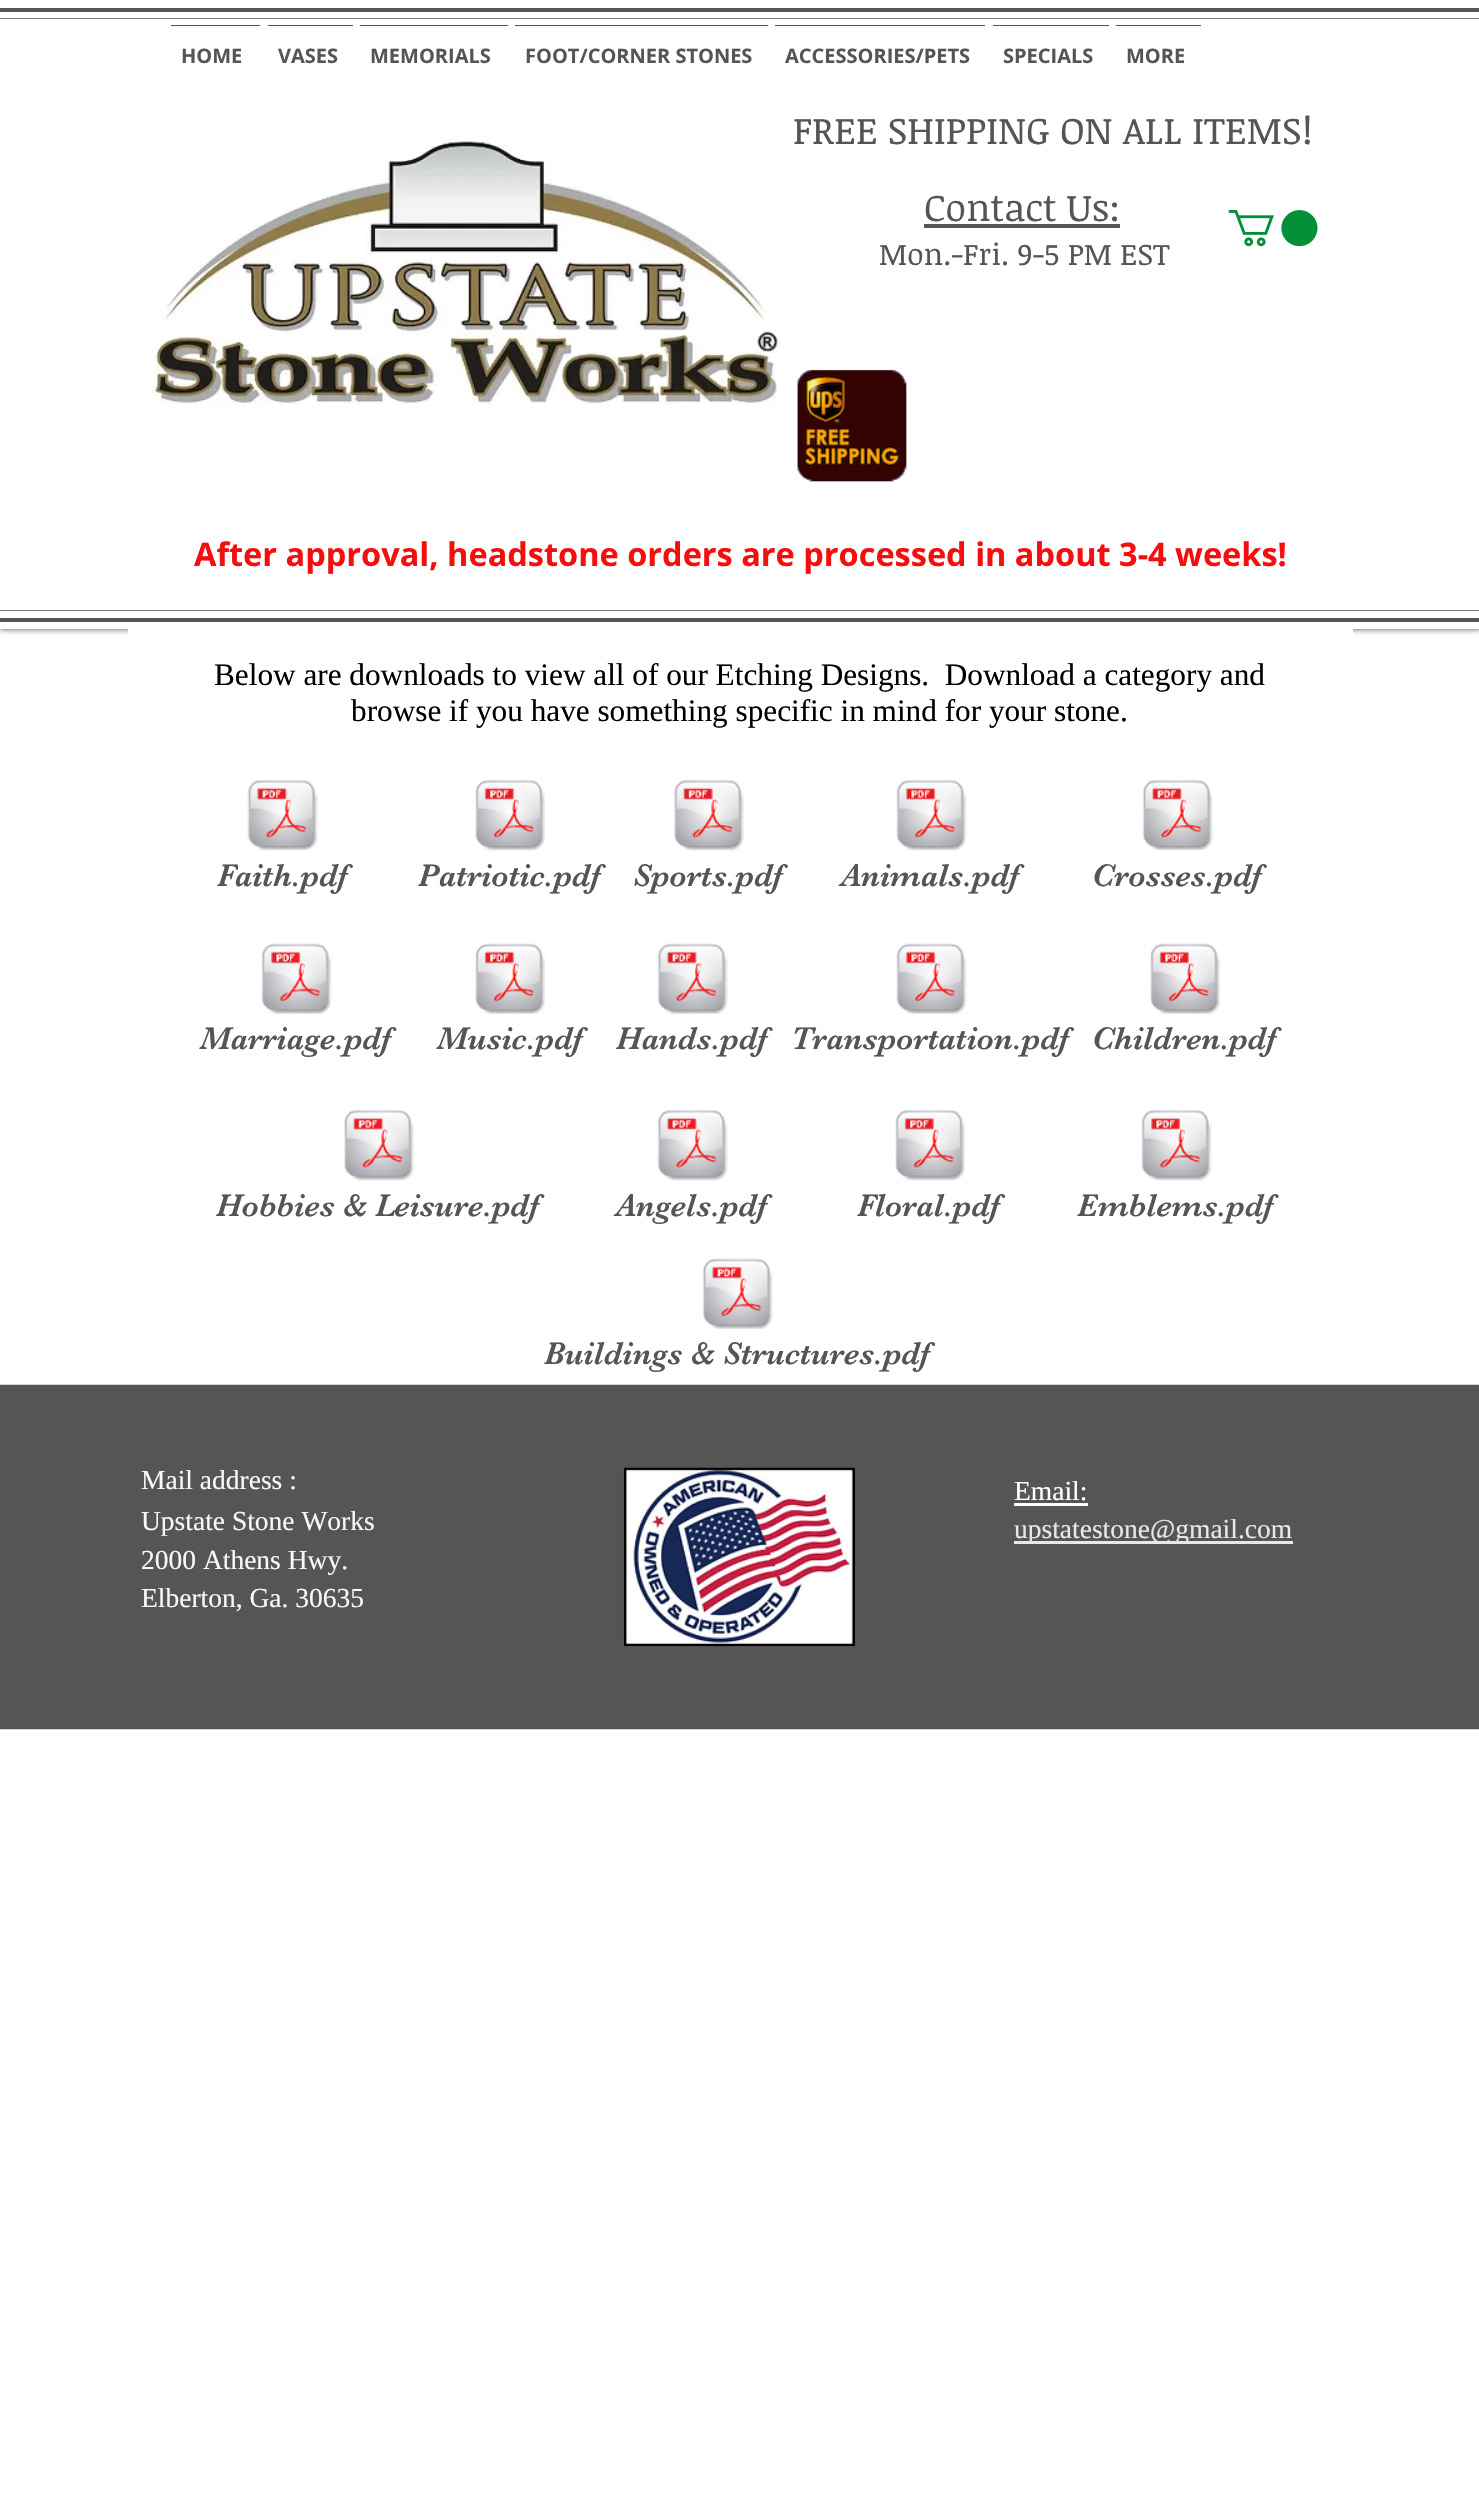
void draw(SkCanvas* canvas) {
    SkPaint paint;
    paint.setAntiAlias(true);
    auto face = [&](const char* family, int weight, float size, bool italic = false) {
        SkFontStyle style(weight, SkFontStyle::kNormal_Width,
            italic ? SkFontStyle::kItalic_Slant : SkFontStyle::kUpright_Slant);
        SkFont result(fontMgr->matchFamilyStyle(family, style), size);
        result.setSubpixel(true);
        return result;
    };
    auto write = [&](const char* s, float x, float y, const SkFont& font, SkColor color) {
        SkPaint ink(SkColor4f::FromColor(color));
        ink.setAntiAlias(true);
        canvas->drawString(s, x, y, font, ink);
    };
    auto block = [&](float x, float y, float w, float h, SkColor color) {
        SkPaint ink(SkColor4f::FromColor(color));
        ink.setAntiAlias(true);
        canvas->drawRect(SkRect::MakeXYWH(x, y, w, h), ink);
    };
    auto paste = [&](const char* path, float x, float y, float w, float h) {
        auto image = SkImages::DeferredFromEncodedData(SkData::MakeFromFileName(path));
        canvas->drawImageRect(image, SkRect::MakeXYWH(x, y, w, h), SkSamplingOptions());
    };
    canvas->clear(SK_ColorWHITE);
    paint.setColor(SkColorSetARGB(179, 0, 0, 0));
    paint.setMaskFilter(SkMaskFilter::MakeBlur(kNormal_SkBlurStyle, 3));
    canvas->drawRect(SkRect::MakeXYWH(0, 0, 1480, 629), paint);
    paint.setMaskFilter(nullptr);
    block(0, 0, 1479, 629, SK_ColorWHITE);
    block(0, 8, 1479, 4, SkColorSetRGB(85, 85, 85));
    block(0, 618, 1479, 4, SkColorSetRGB(85, 85, 85));
    block(0, 18, 1479, 1, SkColorSetRGB(128, 128, 128));
    block(0, 610, 1479, 1, SkColorSetRGB(128, 128, 128));
    block(171, 25, 89, 1, SkColorSetRGB(85, 85, 85));
    auto kFont1 = face("Open Sans", 700, 20);
    write("HOME", 181, 63, kFont1, SkColorSetRGB(85, 85, 85));
    block(268, 25, 85, 1, SkColorSetRGB(85, 85, 85));
    write("VASES", 278, 63, kFont1, SkColorSetRGB(85, 85, 85));
    block(360, 25, 148, 1, SkColorSetRGB(85, 85, 85));
    write("MEMORIALS", 370, 63, kFont1, SkColorSetRGB(85, 85, 85));
    block(515, 25, 253, 1, SkColorSetRGB(85, 85, 85));
    write("FOOT/CORNER STONES", 525, 63, kFont1, SkColorSetRGB(85, 85, 85));
    block(775, 25, 210, 1, SkColorSetRGB(85, 85, 85));
    write("ACCESSORIES/PETS", 785, 63, kFont1, SkColorSetRGB(85, 85, 85));
    block(993, 25, 116, 1, SkColorSetRGB(85, 85, 85));
    write("SPECIALS", 1003, 63, kFont1, SkColorSetRGB(85, 85, 85));
    block(1116, 25, 85, 1, SkColorSetRGB(85, 85, 85));
    write("MORE", 1126, 63, kFont1, SkColorSetRGB(85, 85, 85));
    auto kFont2 = face("Noticia Text", 400, 37.5f);
    write("FREE SHIPPING ON ALL ITEMS!", 793, 144, kFont2, SkColorSetRGB(85, 85, 85));
    paste("pic1.png", 151, 140, 629, 265);
    write("Contact Us:", 924, 221, kFont2, SkColorSetRGB(85, 85, 85));
    block(924, 224, 196, 4, SkColorSetRGB(85, 85, 85));
    auto kFont3 = face("Noticia Text", 400, 30);
    write("Mon.-Fri. 9-5 PM EST", 879, 265, kFont3, SkColorSetRGB(85, 85, 85));
    paste("pic2.png", 1228, 210, 90, 37);
    paste("pic3.png", 797, 369, 110, 113);
    auto kFont4 = face("Open Sans", 700, 32.5f);
    write("After approval, headstone orders are processed in about 3-4 weeks!", 194, 566, kFont4, SkColorSetRGB(245, 14, 14));
    block(128, 629, 1225, 7, SK_ColorWHITE);
    auto kFont5 = face("Liberation Serif", 400, 31.25f);
    write("Below are downloads to view all of our Etching Designs.  Download a category and", 214, 685, kFont5, SK_ColorBLACK);
    write("browse if you have something specific in mind for your stone.", 351, 721, kFont5, SK_ColorBLACK);
    paste("pic4.png", 247, 780, 71, 71);
    auto kFont6 = face("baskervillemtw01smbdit", 400, 32.5f);
    write("Faith.pdf", 217, 886, kFont6, SkColorSetRGB(85, 85, 85));
    paste("pic5.png", 475, 780, 70, 71);
    write("Patriotic.pdf", 418, 886, kFont6, SkColorSetRGB(85, 85, 85));
    paste("pic6.png", 673, 780, 71, 71);
    write("Sports.pdf", 633, 886, kFont6, SkColorSetRGB(85, 85, 85));
    paste("pic7.png", 896, 780, 71, 71);
    write("Animals.pdf", 841, 886, kFont6, SkColorSetRGB(85, 85, 85));
    paste("pic8.png", 1142, 780, 71, 71);
    write("Crosses.pdf", 1092, 886, kFont6, SkColorSetRGB(85, 85, 85));
    paste("pic9.png", 261, 943, 71, 71);
    write("Marriage.pdf", 200, 1049, kFont6, SkColorSetRGB(85, 85, 85));
    paste("pic10.png", 475, 943, 70, 71);
    write("Music.pdf", 437, 1049, kFont6, SkColorSetRGB(85, 85, 85));
    paste("pic11.png", 657, 943, 71, 71);
    write("Hands.pdf", 616, 1049, kFont6, SkColorSetRGB(85, 85, 85));
    paste("pic12.png", 896, 943, 71, 71);
    write("Transportation.pdf", 791, 1049, kFont6, SkColorSetRGB(85, 85, 85));
    paste("pic10.png", 1150, 943, 70, 71);
    write("Children.pdf", 1092, 1049, kFont6, SkColorSetRGB(85, 85, 85));
    paste("pic13.png", 343, 1110, 71, 71);
    write("Hobbies & Leisure.pdf", 216, 1216, kFont6, SkColorSetRGB(85, 85, 85));
    paste("pic14.png", 657, 1110, 71, 71);
    write("Angels.pdf", 616, 1216, kFont6, SkColorSetRGB(85, 85, 85));
    paste("pic15.png", 895, 1110, 70, 71);
    write("Floral.pdf", 857, 1216, kFont6, SkColorSetRGB(85, 85, 85));
    paste("pic16.png", 1141, 1110, 71, 71);
    write("Emblems.pdf", 1077, 1216, kFont6, SkColorSetRGB(85, 85, 85));
    paste("pic11.png", 702, 1258, 71, 71);
    write("Buildings & Structures.pdf", 544, 1364, kFont6, SkColorSetRGB(85, 85, 85));
    block(0, 1385, 1479, 344, SkColorSetRGB(85, 85, 85));
    block(0, 1384, 1479, 1, SkColorSetRGB(213, 213, 213));
    block(0, 1729, 1479, 1, SkColorSetRGB(213, 213, 213));
    auto kFont7 = face("Liberation Serif", 400, 27.5f);
    write("Mail address :", 141, 1489, kFont7, SkColorSetRGB(248, 248, 248));
    write("Upstate Stone Works", 141, 1530, kFont7, SkColorSetRGB(248, 248, 248));
    write("2000 Athens Hwy.", 141, 1569, kFont7, SkColorSetRGB(248, 248, 248));
    write("Elberton, Ga. 30635", 141, 1607, kFont7, SkColorSetRGB(248, 248, 248));
    paste("pic17.png", 623, 1467, 232, 180);
    write("Email:", 1014, 1500, kFont7, SK_ColorWHITE);
    block(1014, 1503, 74, 3, SK_ColorWHITE);
    block(1014, 1541, 279, 3, SkColorSetRGB(232, 232, 232));
    write("upstatestone@gmail.com", 1014, 1538, kFont7, SkColorSetRGB(232, 232, 232));
}
